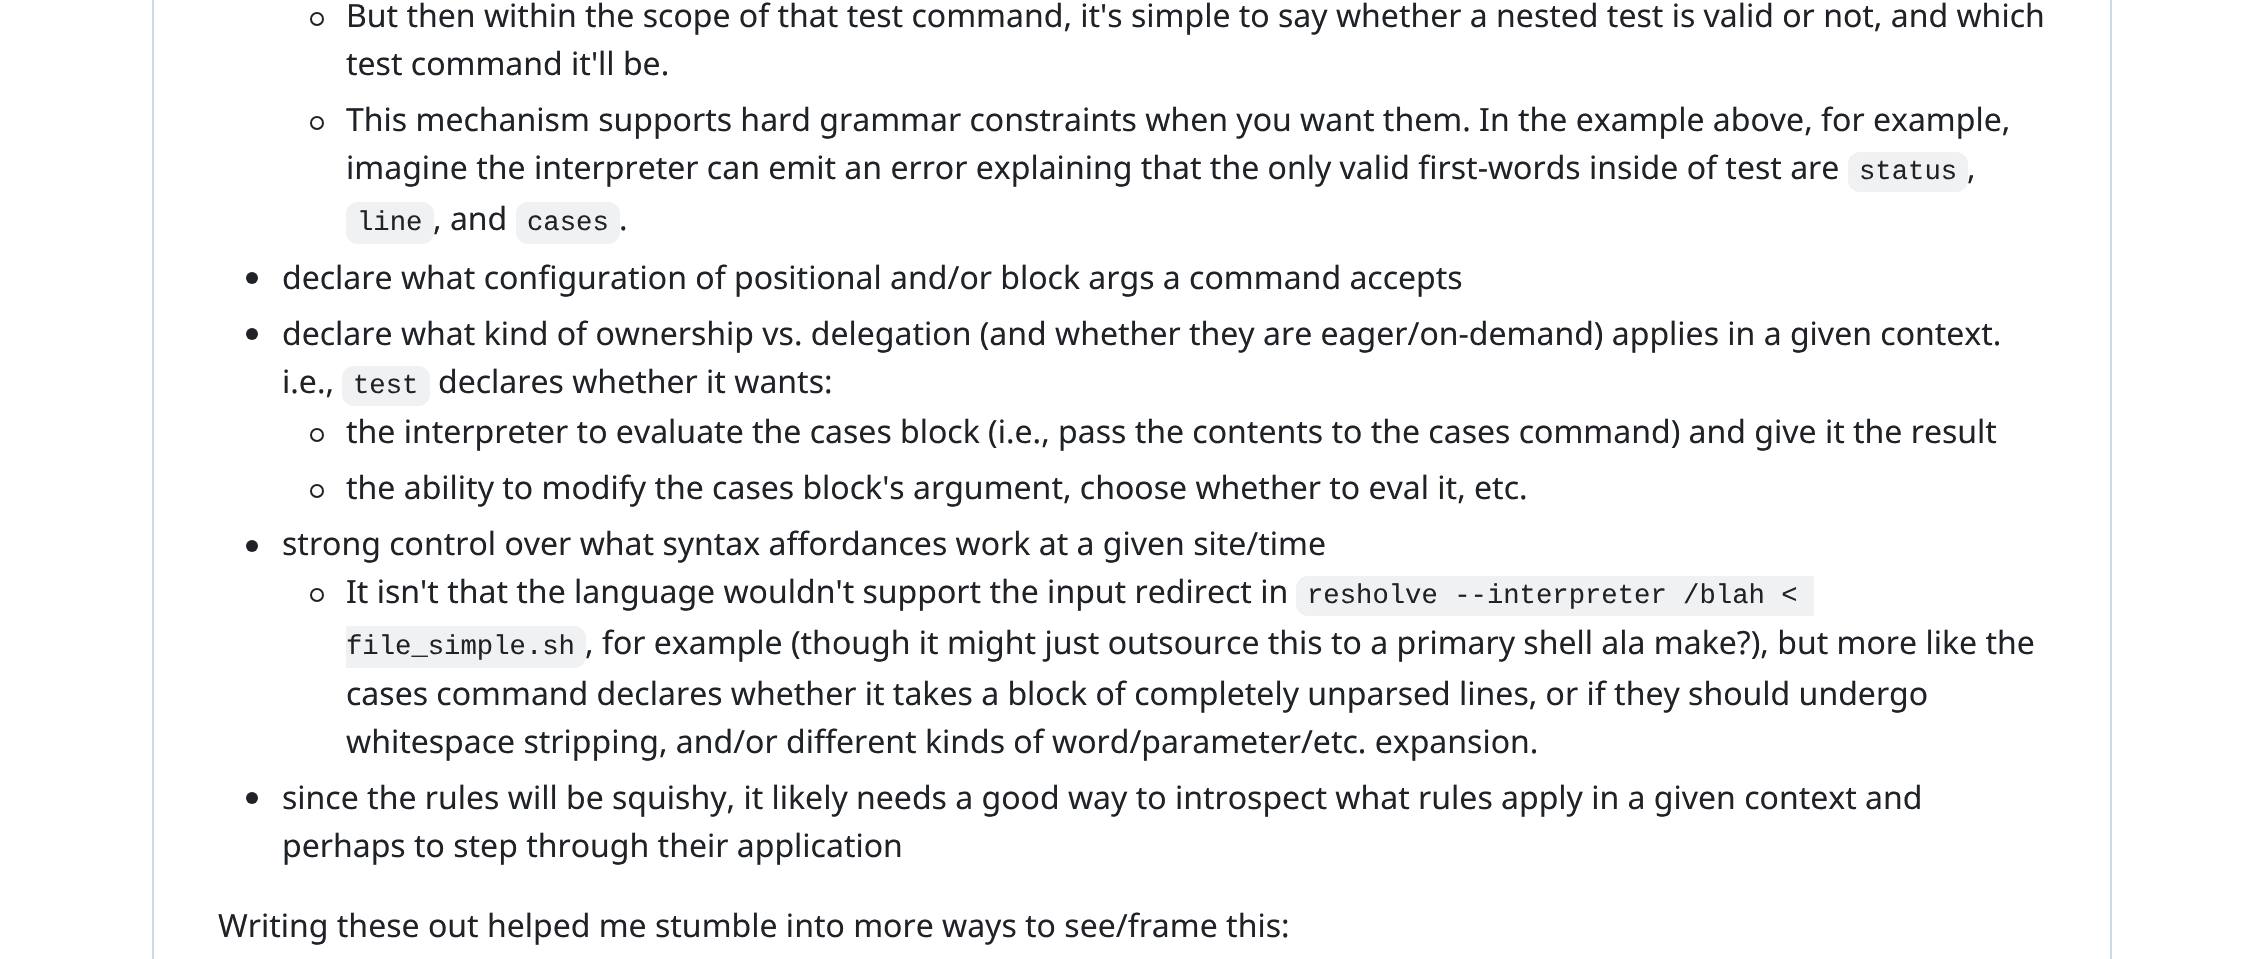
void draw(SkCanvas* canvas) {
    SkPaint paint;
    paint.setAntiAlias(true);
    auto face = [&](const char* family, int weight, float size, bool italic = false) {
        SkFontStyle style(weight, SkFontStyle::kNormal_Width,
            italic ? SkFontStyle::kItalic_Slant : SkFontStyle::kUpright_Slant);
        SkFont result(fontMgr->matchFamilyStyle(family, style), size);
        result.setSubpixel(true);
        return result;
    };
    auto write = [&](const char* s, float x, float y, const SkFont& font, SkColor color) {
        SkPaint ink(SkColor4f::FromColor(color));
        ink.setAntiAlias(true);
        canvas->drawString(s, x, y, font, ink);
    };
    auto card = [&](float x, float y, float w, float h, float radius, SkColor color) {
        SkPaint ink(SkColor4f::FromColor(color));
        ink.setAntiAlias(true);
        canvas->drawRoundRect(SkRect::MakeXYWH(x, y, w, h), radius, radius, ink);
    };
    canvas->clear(SK_ColorWHITE);
    paint.setStyle(SkPaint::kStroke_Style);
    paint.setStrokeWidth(2);
    paint.setColor(SkColorSetRGB(209, 217, 224));
    canvas->drawRect(SkRect::MakeXYWH(153, -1, 1958, 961), paint);
    paint.setColor(SkColorSetRGB(31, 35, 40));
    canvas->drawCircle(317, 19, 6, paint);
    auto kFont1 = face("Noto Sans", 400, 32);
    write("But then within the scope of that test command, it's simple to say whether a nested test is valid or not, and which", 346, 27, kFont1, SkColorSetRGB(31, 35, 40));
    write("test command it'll be.", 346, 75, kFont1, SkColorSetRGB(31, 35, 40));
    canvas->drawCircle(317, 123, 6, paint);
    write("This mechanism supports hard grammar constraints when you want them. In the example above, for example,", 346, 131, kFont1, SkColorSetRGB(31, 35, 40));
    write("imagine the interpreter can emit an error explaining that the only valid first-words inside of test are", 346, 179, kFont1, SkColorSetRGB(31, 35, 40));
    card(1848, 152, 120, 40, 12, SkColorSetRGB(240, 241, 243));
    auto kFont2 = face("Liberation Mono", 400, 27.25f);
    write("status", 1859, 179, kFont2, SkColorSetRGB(31, 35, 40));
    write(",", 1967, 179, kFont1, SkColorSetRGB(31, 35, 40));
    card(346, 202, 88, 42, 12, SkColorSetRGB(240, 241, 243));
    write("line", 357, 230, kFont2, SkColorSetRGB(31, 35, 40));
    write(", and", 433, 230, kFont1, SkColorSetRGB(31, 35, 40));
    card(516, 202, 104, 42, 12, SkColorSetRGB(240, 241, 243));
    write("cases", 527, 230, kFont2, SkColorSetRGB(31, 35, 40));
    write(".", 619, 230, kFont1, SkColorSetRGB(31, 35, 40));
    paint.setStyle(SkPaint::kFill_Style);
    canvas->drawCircle(252, 278, 6, paint);
    write("declare what configuration of positional and/or block args a command accepts", 282, 289, kFont1, SkColorSetRGB(31, 35, 40));
    canvas->drawCircle(252, 334, 6, paint);
    write("declare what kind of ownership vs. delegation (and whether they are eager/on-demand) applies in a given context.", 282, 345, kFont1, SkColorSetRGB(31, 35, 40));
    write("i.e.,", 282, 393, kFont1, SkColorSetRGB(31, 35, 40));
    card(342, 366, 88, 40, 12, SkColorSetRGB(240, 241, 243));
    write("test", 353, 393, kFont2, SkColorSetRGB(31, 35, 40));
    write("declares whether it wants:", 438, 393, kFont1, SkColorSetRGB(31, 35, 40));
    paint.setStyle(SkPaint::kStroke_Style);
    canvas->drawCircle(317, 435, 6, paint);
    write("the interpreter to evaluate the cases block (i.e., pass the contents to the cases command) and give it the result", 346, 443, kFont1, SkColorSetRGB(31, 35, 40));
    canvas->drawCircle(317, 491, 6, paint);
    write("the ability to modify the cases block's argument, choose whether to eval it, etc.", 346, 499, kFont1, SkColorSetRGB(31, 35, 40));
    paint.setStyle(SkPaint::kFill_Style);
    canvas->drawCircle(252, 546, 6, paint);
    write("strong control over what syntax affordances work at a given site/time", 282, 555, kFont1, SkColorSetRGB(31, 35, 40));
    paint.setStyle(SkPaint::kStroke_Style);
    canvas->drawCircle(317, 595, 6, paint);
    write("It isn't that the language wouldn't support the input redirect in", 346, 603, kFont1, SkColorSetRGB(31, 35, 40));
    paint.setStyle(SkPaint::kFill_Style);
    paint.setColor(SkColorSetRGB(240, 241, 243));
    canvas->drawPath(SkPathBuilder().moveTo(1308, 576).lineTo(1814, 576).lineTo(1814, 616).lineTo(1308, 616).cubicTo(1301.5f, 616, 1296, 610.5f, 1296, 604).lineTo(1296, 588).cubicTo(1296, 581.5f, 1301.5f, 576, 1308, 576).close().detach(), paint);
    write("resholve --interpreter /blah <", 1307, 603, kFont2, SkColorSetRGB(31, 35, 40));
    canvas->drawPath(SkPathBuilder().moveTo(346, 626).lineTo(574, 626).cubicTo(580.5f, 626, 586, 631.5f, 586, 638).lineTo(586, 656).cubicTo(586, 662.5f, 580.5f, 668, 574, 668).lineTo(346, 668).close().detach(), paint);
    write("file_simple.sh", 346, 654, kFont2, SkColorSetRGB(31, 35, 40));
    write(", for example (though it might just outsource this to a primary shell ala make?), but more like the", 585, 654, kFont1, SkColorSetRGB(31, 35, 40));
    write("cases command declares whether it takes a block of completely unparsed lines, or if they should undergo", 346, 705, kFont1, SkColorSetRGB(31, 35, 40));
    write("whitespace stripping, and/or different kinds of word/parameter/etc. expansion.", 346, 753, kFont1, SkColorSetRGB(31, 35, 40));
    paint.setColor(SkColorSetRGB(31, 35, 40));
    canvas->drawCircle(252, 798, 6, paint);
    write("since the rules will be squishy, it likely needs a good way to introspect what rules apply in a given context and", 282, 809, kFont1, SkColorSetRGB(31, 35, 40));
    write("perhaps to step through their application", 282, 857, kFont1, SkColorSetRGB(31, 35, 40));
    write("Writing these out helped me stumble into more ways to see/frame this:", 218, 937, kFont1, SkColorSetRGB(31, 35, 40));
}
